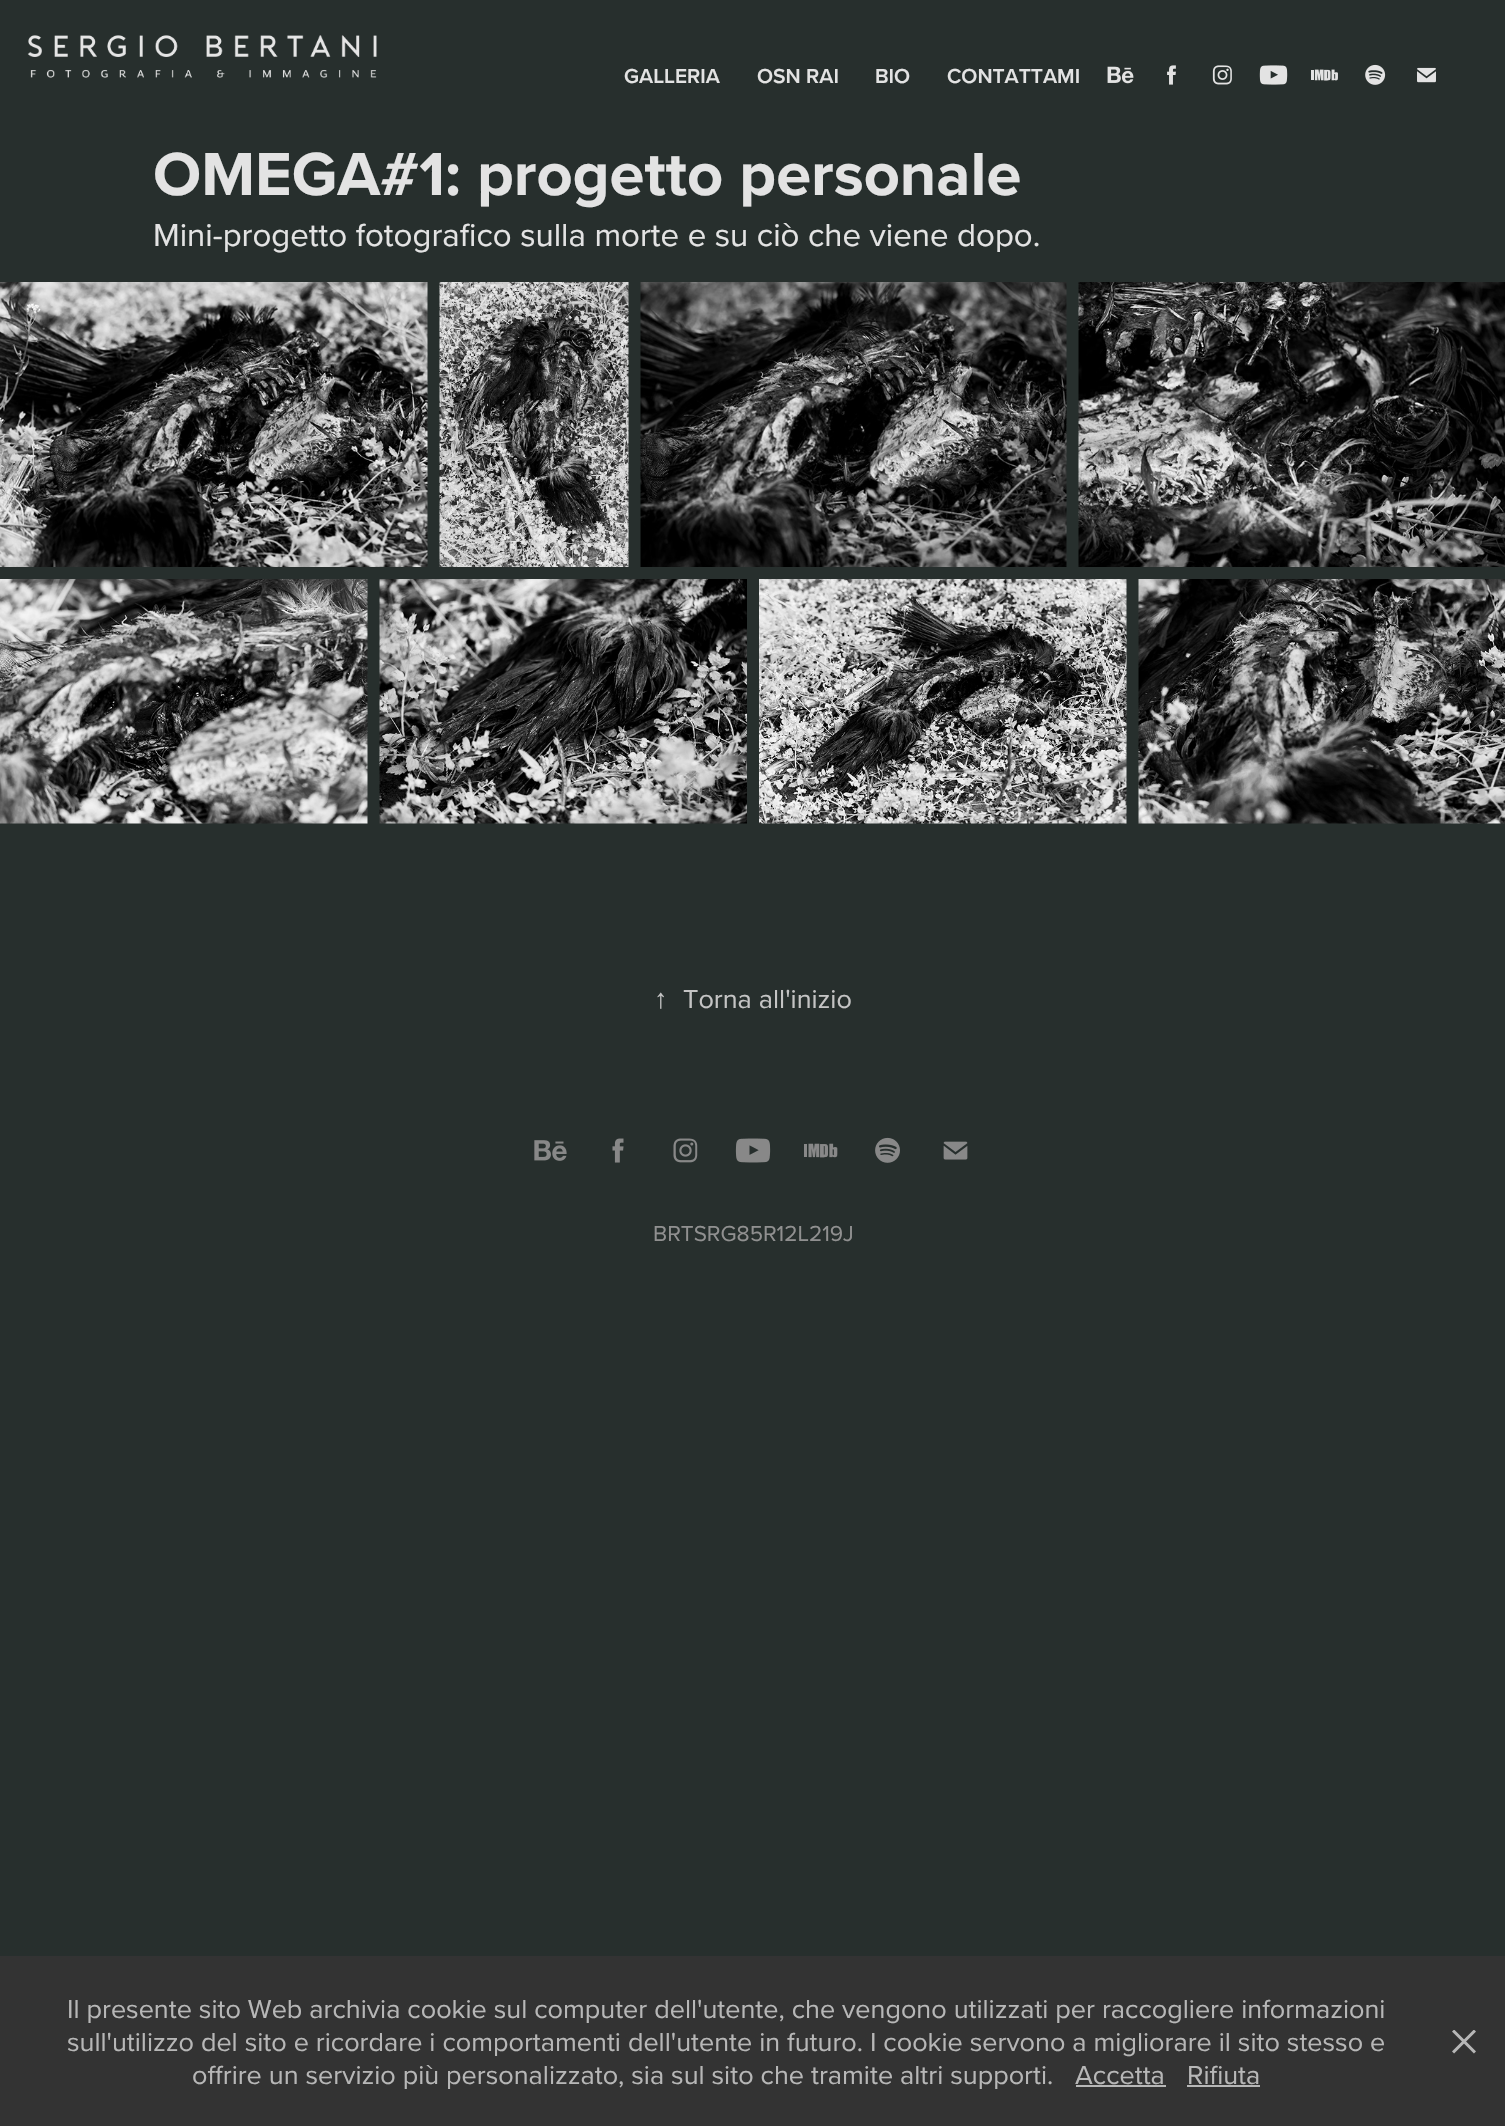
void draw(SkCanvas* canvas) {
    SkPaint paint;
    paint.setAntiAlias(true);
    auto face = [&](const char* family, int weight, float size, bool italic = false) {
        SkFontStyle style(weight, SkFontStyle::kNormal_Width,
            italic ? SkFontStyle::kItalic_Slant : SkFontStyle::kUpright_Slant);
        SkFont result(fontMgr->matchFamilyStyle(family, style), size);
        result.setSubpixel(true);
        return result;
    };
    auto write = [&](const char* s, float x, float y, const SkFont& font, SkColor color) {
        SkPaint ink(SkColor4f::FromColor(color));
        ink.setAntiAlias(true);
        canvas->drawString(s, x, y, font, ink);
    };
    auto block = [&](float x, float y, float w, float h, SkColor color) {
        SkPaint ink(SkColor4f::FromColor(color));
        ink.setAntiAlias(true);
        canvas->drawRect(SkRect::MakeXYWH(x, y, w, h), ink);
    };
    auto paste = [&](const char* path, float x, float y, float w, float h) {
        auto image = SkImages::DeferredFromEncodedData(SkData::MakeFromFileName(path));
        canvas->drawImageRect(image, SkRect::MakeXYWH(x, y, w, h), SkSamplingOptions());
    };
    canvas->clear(SkColorSetRGB(39, 47, 45));
    paste("pic1.png", 27, 35, 350, 43);
    auto kFont1 = face("Proxima Nova", 600, 21);
    write("GALLERIA", 624, 83, kFont1, SkColorSetRGB(227, 227, 227));
    write("OSN RAI", 757, 83, kFont1, SkColorSetRGB(227, 227, 227));
    write("BIO", 875, 83, kFont1, SkColorSetRGB(227, 227, 227));
    write("CONTATTAMI", 947, 83, kFont1, SkColorSetRGB(227, 227, 227));
    paste("pic2.png", 1107, 66, 27, 18);
    paste("pic3.png", 1167, 65, 9, 20);
    paste("pic4.png", 1212, 65, 20, 20);
    paste("pic5.png", 1259, 65, 29, 20);
    paste("pic6.png", 1311, 69, 27, 12);
    paste("pic7.png", 1365, 64, 21, 21);
    paste("pic8.png", 1417, 67, 19, 16);
    auto kFont2 = face("Proxima Nova", 700, 63);
    write("OMEGA#1: progetto personale", 153, 195, kFont2, SkColorSetRGB(227, 227, 227));
    auto kFont3 = face("Proxima Nova", 400, 33);
    write("Mini-progetto fotografico sulla morte e su ciò che viene dopo.", 153, 246, kFont3, SkColorSetRGB(227, 227, 227));
    paste("pic9.png", 0, 282, 428, 285);
    paste("pic10.png", 439, 282, 190, 285);
    paste("pic11.png", 640, 282, 427, 285);
    paste("pic12.png", 1078, 282, 427, 285);
    paste("pic13.png", 0, 579, 368, 245);
    paste("pic14.png", 379, 579, 368, 245);
    paste("pic15.png", 759, 579, 368, 245);
    paste("pic16.png", 1138, 579, 367, 245);
    auto kFont4 = face("Liberation Serif", 400, 27);
    write("↑", 654, 1008, kFont4, SkColorSetRGB(196, 196, 196));
    auto kFont5 = face("Proxima Nova", 400, 27);
    write("Torna all'inizio", 683, 1008, kFont5, SkColorSetRGB(196, 196, 196));
    paste("pic17.png", 534, 1140, 33, 21);
    paste("pic18.png", 612, 1138, 12, 25);
    paste("pic19.png", 673, 1138, 25, 25);
    paste("pic20.png", 735, 1138, 36, 25);
    paste("pic21.png", 804, 1143, 34, 15);
    paste("pic22.png", 875, 1137, 25, 26);
    paste("pic23.png", 943, 1141, 25, 19);
    auto kFont6 = face("Proxima Nova", 400, 22.5f);
    write("BRTSRG85R12L219J", 653, 1241, kFont6, SkColorSetRGB(144, 144, 144));
    block(0, 1956, 1505, 170, SkColorSetRGB(51, 51, 51));
    write("Il presente sito Web archivia cookie sul computer dell'utente, che vengono utilizzati per raccogliere informazioni", 67, 2018, kFont5, SkColorSetRGB(183, 183, 183));
    write("sull'utilizzo del sito e ricordare i comportamenti dell'utente in futuro. I cookie servono a migliorare il sito stesso e", 67, 2051, kFont5, SkColorSetRGB(183, 183, 183));
    write("offrire un servizio più personalizzato, sia sul sito che tramite altri supporti.", 192, 2084, kFont5, SkColorSetRGB(183, 183, 183));
    write("Accetta", 1075, 2084, kFont5, SkColorSetRGB(183, 183, 183));
    block(1076, 2085, 90, 2, SkColorSetRGB(183, 183, 183));
    write("Rifiuta", 1187, 2084, kFont5, SkColorSetRGB(183, 183, 183));
    block(1187, 2085, 73, 2, SkColorSetRGB(183, 183, 183));
    paste("pic24.png", 1452, 2030, 24, 24);
}
